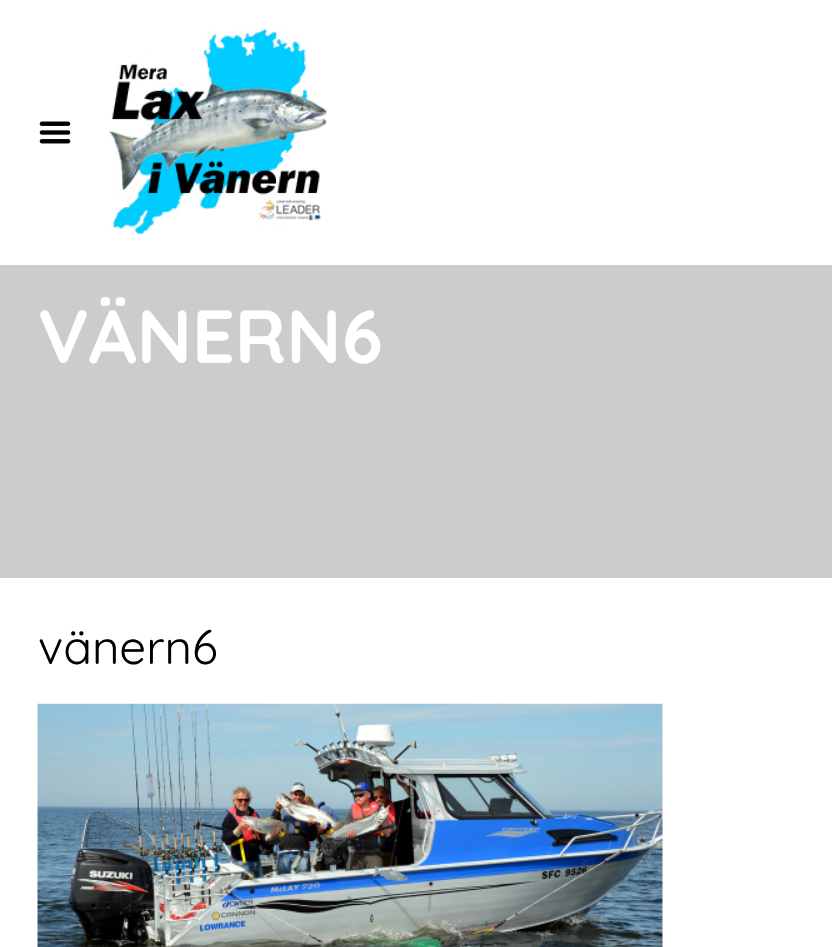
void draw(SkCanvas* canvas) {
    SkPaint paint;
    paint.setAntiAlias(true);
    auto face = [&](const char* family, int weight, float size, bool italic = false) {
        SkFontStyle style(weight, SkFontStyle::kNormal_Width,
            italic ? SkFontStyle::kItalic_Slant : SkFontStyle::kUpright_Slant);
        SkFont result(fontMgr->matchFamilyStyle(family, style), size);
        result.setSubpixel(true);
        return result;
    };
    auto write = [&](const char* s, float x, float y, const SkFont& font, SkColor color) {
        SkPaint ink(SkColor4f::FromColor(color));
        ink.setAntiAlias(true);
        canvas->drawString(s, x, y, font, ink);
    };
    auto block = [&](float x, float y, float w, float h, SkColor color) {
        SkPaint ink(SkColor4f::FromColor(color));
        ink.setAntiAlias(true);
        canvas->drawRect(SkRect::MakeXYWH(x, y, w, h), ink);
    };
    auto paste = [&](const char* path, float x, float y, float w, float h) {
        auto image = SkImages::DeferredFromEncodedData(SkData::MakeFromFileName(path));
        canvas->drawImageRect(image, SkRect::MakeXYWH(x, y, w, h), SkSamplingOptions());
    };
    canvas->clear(SK_ColorWHITE);
    paste("pic1.png", 39, 121, 32, 23);
    paste("pic2.png", 109, 28, 218, 207);
    block(0, 265, 832, 313, SkColorSetRGB(204, 204, 204));
    auto kFont1 = face("Quicksand", 700, 75);
    write("VÄNERN6", 38, 363, kFont1, SK_ColorWHITE);
    auto kFont2 = face("Quicksand", 400, 47.5f);
    write("vänern6", 38, 664, kFont2, SK_ColorBLACK);
    paste("pic3.png", 37, 703, 626, 244);
}
